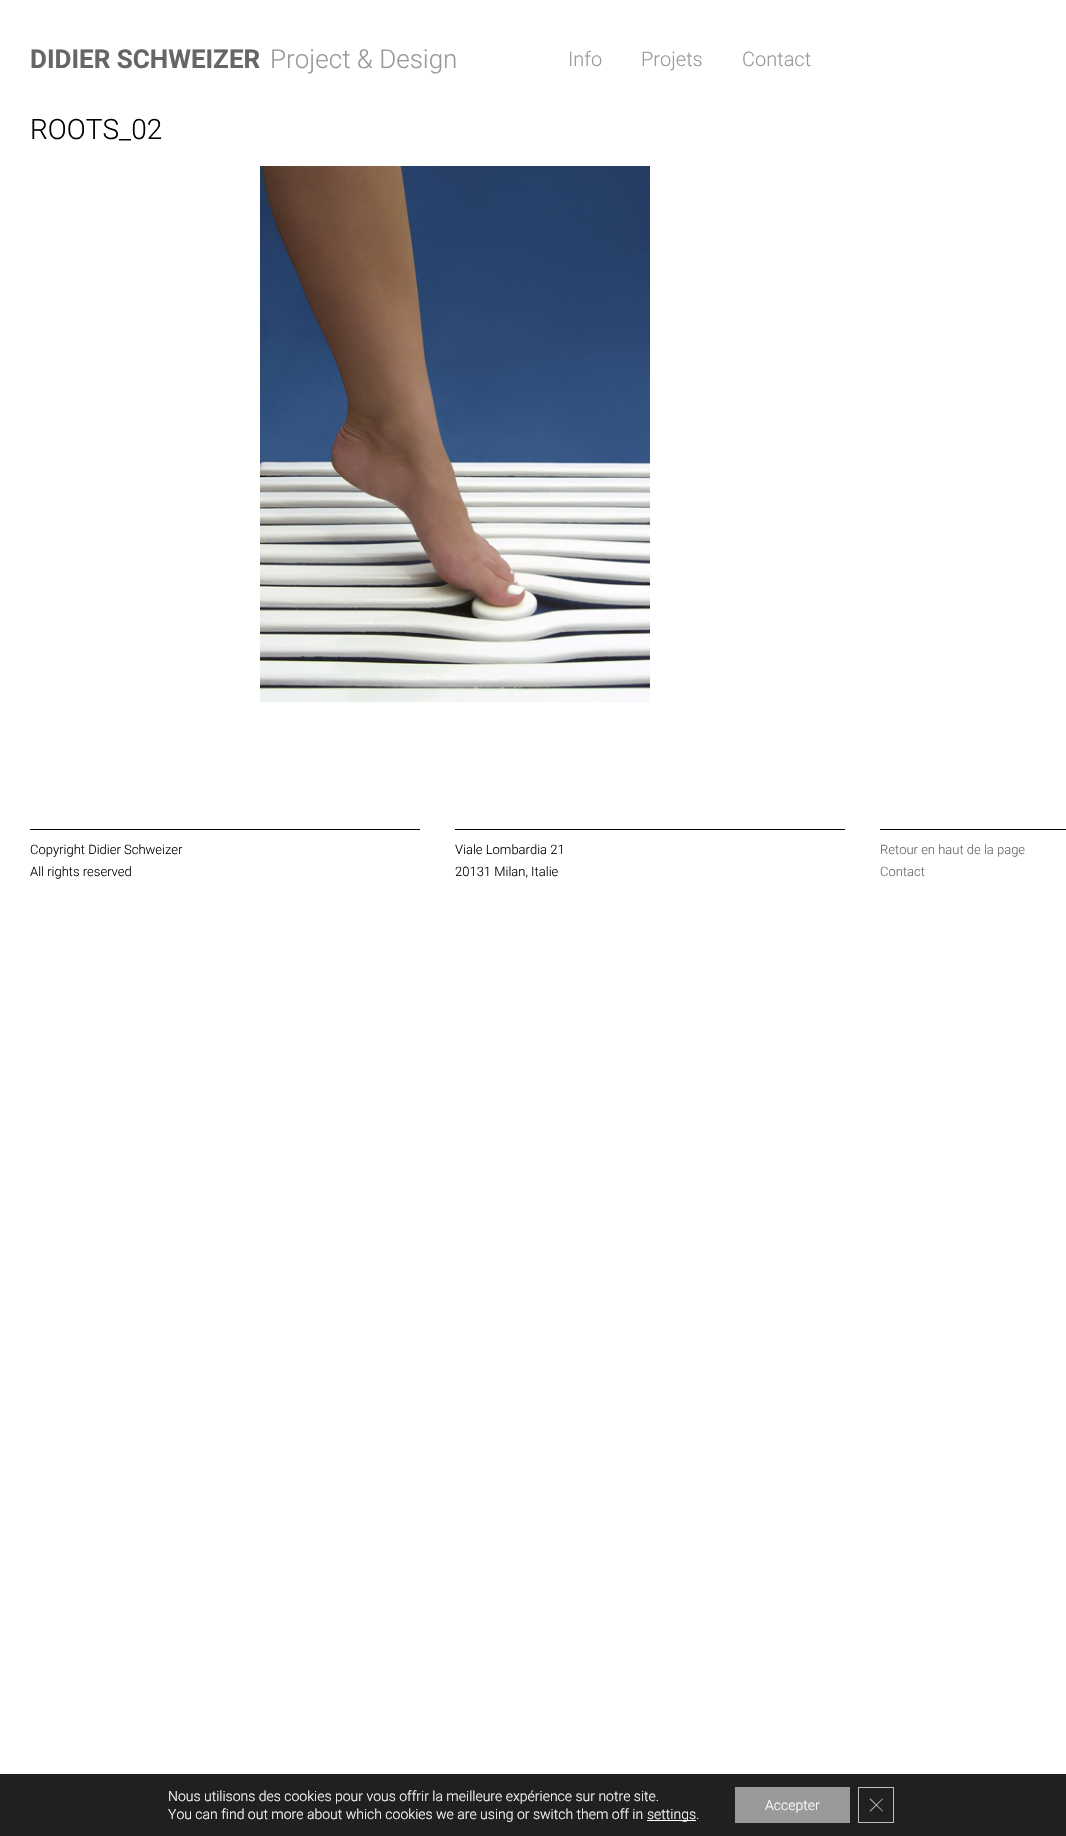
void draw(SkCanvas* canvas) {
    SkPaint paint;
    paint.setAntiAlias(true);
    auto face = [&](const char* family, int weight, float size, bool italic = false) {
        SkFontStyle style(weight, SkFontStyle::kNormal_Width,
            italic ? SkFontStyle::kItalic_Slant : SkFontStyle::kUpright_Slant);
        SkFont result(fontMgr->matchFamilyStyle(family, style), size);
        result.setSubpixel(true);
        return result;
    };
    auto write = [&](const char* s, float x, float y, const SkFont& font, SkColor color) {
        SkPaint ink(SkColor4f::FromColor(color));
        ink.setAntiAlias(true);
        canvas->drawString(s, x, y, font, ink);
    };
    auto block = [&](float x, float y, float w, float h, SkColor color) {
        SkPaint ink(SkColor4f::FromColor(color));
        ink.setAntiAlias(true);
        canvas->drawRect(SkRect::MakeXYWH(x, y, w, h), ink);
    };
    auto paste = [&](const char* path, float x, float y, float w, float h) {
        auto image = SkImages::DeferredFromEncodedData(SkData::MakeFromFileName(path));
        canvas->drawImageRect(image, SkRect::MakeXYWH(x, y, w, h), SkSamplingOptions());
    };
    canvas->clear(SK_ColorWHITE);
    auto kFont1 = face("Roboto", 700, 26);
    write("DIDIER SCHWEIZER", 30, 68, kFont1, SkColorSetRGB(102, 102, 102));
    auto kFont2 = face("Roboto", 300, 26);
    write("Project & Design", 270, 68, kFont2, SkColorSetRGB(153, 153, 153));
    auto kFont3 = face("Roboto", 300, 20);
    write("Info", 568, 66, kFont3, SkColorSetRGB(153, 153, 153));
    write("Projets", 641, 66, kFont3, SkColorSetRGB(153, 153, 153));
    write("Contact", 742, 66, kFont3, SkColorSetRGB(153, 153, 153));
    auto kFont4 = face("Roboto", 300, 28);
    write("ROOTS_02", 30, 139, kFont4, SK_ColorBLACK);
    paste("pic1.png", 260, 166, 390, 536);
    block(30, 829, 390, 1, SkColorSetRGB(1, 1, 1));
    auto kFont5 = face("Roboto", 300, 13);
    write("Copyright Didier Schweizer", 30, 854, kFont5, SK_ColorBLACK);
    write("All rights reserved", 30, 876, kFont5, SK_ColorBLACK);
    block(455, 829, 390, 1, SkColorSetRGB(1, 1, 1));
    write("Viale Lombardia 21", 455, 854, kFont5, SK_ColorBLACK);
    write("20131 Milan, Italie", 455, 876, kFont5, SK_ColorBLACK);
    block(880, 829, 186, 1, SkColorSetRGB(1, 1, 1));
    write("Retour en haut de la page", 880, 854, kFont5, SkColorSetRGB(102, 102, 102));
    write("Contact", 880, 876, kFont5, SkColorSetRGB(102, 102, 102));
    block(0, 1774, 1066, 62, SkColorSetRGB(32, 32, 32));
    auto kFont6 = face("Roboto", 300, 14);
    write("Nous utilisons des cookies pour vous offrir la meilleure expérience sur notre site.", 168, 1801, kFont6, SK_ColorWHITE);
    write("You can find out more about which cookies we are using or switch them off in", 168, 1819, kFont6, SK_ColorWHITE);
    block(647, 1820, 49, 1, SK_ColorWHITE);
    write("settings.", 647, 1819, kFont6, SK_ColorWHITE);
    block(735, 1787, 115, 36, SkColorSetRGB(153, 153, 153));
    write("Accepter", 765, 1810, kFont6, SK_ColorWHITE);
    paint.setStyle(SkPaint::kStroke_Style);
    paint.setStrokeWidth(1);
    paint.setColor(SkColorSetRGB(188, 188, 188));
    canvas->drawRect(SkRect::MakeXYWH(858.5f, 1787.5f, 35, 35), paint);
    paint.setStyle(SkPaint::kFill_Style);
    canvas->drawPath(SkPathBuilder().moveTo(882.5f, 1798.5f).lineTo(883, 1799).lineTo(870.5f, 1811.5f).lineTo(869.5f, 1811).close().detach(), paint);
    canvas->drawPath(SkPathBuilder().moveTo(869.5f, 1799).lineTo(870.5f, 1798.5f).lineTo(883, 1811).lineTo(882.5f, 1811.5f).close().detach(), paint);
}
